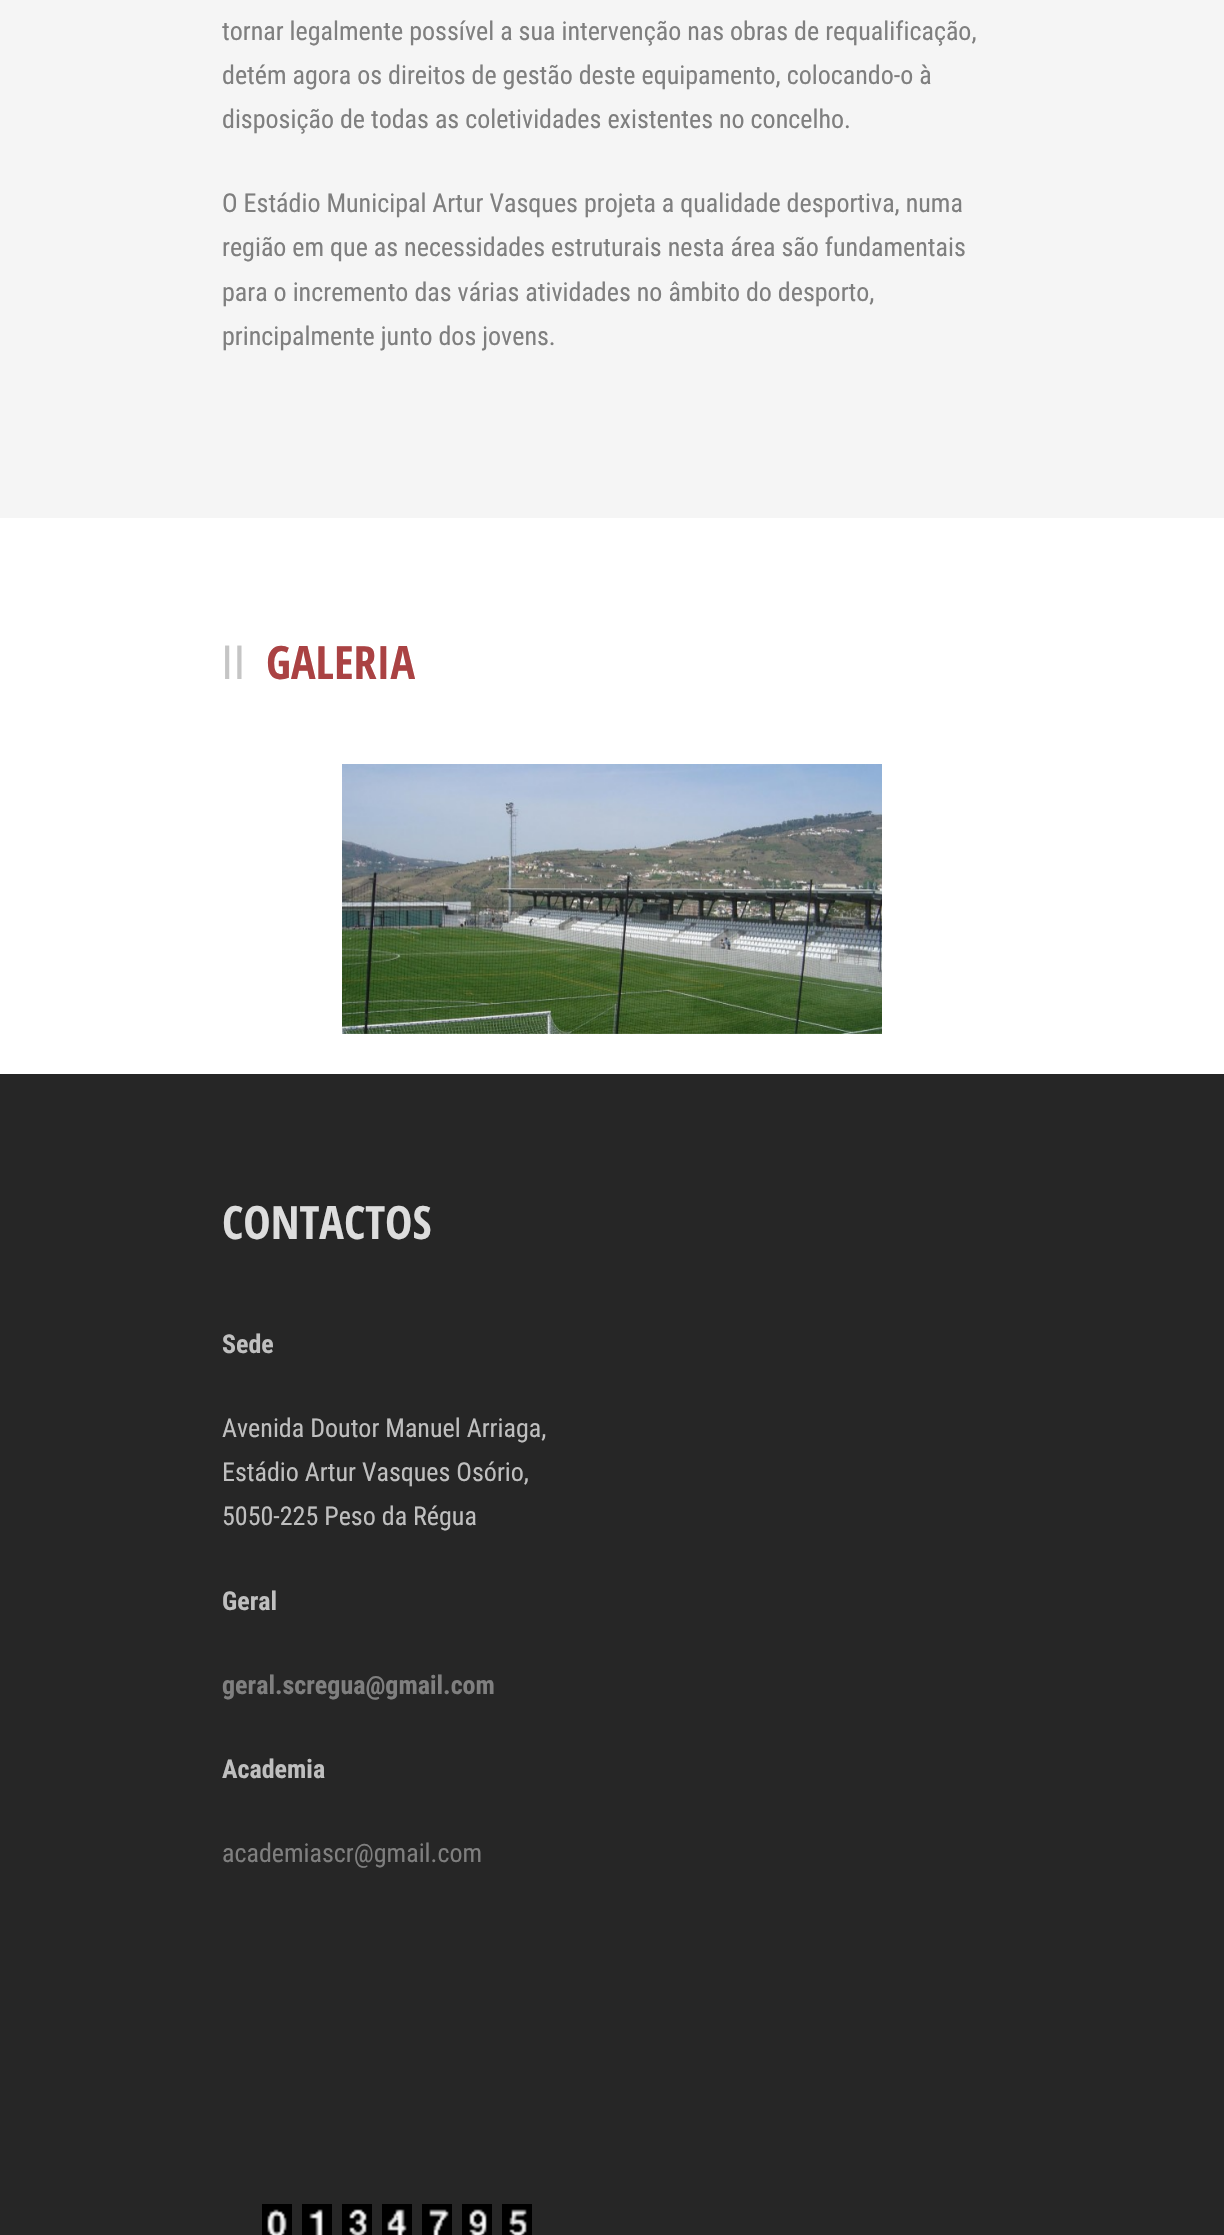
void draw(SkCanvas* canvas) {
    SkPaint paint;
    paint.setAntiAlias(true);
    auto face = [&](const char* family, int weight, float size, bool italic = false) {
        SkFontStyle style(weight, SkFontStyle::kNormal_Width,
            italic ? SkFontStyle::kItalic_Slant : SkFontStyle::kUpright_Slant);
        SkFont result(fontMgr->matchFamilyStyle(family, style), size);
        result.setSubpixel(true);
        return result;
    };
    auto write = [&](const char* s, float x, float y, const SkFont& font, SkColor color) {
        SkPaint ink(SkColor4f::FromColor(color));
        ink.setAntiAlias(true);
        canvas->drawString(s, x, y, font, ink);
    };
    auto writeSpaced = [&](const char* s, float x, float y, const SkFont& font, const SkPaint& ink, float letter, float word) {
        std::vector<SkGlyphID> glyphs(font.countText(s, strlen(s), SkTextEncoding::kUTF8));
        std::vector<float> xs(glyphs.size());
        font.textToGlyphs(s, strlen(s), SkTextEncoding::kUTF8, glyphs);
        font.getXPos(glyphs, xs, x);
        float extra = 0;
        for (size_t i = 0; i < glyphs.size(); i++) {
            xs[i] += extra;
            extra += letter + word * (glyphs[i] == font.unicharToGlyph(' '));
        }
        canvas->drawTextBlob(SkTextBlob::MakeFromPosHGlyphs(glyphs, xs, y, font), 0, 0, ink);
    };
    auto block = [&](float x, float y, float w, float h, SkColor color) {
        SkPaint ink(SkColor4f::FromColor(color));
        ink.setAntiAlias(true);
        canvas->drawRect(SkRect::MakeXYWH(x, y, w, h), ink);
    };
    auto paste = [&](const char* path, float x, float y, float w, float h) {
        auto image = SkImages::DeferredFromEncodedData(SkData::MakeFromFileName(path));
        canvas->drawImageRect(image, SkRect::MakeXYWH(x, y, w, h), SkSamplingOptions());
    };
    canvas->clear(SK_ColorWHITE);
    block(0, 0, 1224, 518, SkColorSetRGB(245, 245, 245));
    auto kFont1 = face("Roboto Condensed", 400, 26);
    write("tornar legalmente possível a sua intervenção nas obras de requalificação,", 222, 40, kFont1, SkColorSetRGB(127, 127, 127));
    write("detém agora os direitos de gestão deste equipamento, colocando-o à", 222, 84, kFont1, SkColorSetRGB(127, 127, 127));
    write("disposição de todas as coletividades existentes no concelho.", 222, 128, kFont1, SkColorSetRGB(127, 127, 127));
    write("O Estádio Municipal Artur Vasques projeta a qualidade desportiva, numa", 222, 212, kFont1, SkColorSetRGB(127, 127, 127));
    write("região em que as necessidades estruturais nesta área são fundamentais", 222, 256, kFont1, SkColorSetRGB(127, 127, 127));
    write("para o incremento das várias atividades no âmbito do desporto,", 222, 301, kFont1, SkColorSetRGB(127, 127, 127));
    write("principalmente junto dos jovens.", 222, 345, kFont1, SkColorSetRGB(127, 127, 127));
    auto kFont2 = face("Liberation Sans", 400, 46);
    paint.setColor(SkColorSetRGB(197, 197, 197));
    writeSpaced("ll", 222, 679, kFont2, paint, 2, 0);
    auto kFont3 = face("Open Sans Condensed", 700, 46);
    write("GALERIA", 266, 679, kFont3, SkColorSetRGB(170, 66, 67));
    paste("pic1.png", 342, 764, 540, 270);
    block(0, 1074, 1224, 1161, SkColorSetRGB(38, 38, 38));
    write("CONTACTOS", 222, 1239, kFont3, SkColorSetRGB(221, 221, 221));
    auto kFont4 = face("Roboto Condensed", 700, 26);
    write("Sede", 222, 1353, kFont4, SkColorSetRGB(191, 191, 191));
    write("Avenida Doutor Manuel Arriaga,", 222, 1437, kFont1, SkColorSetRGB(191, 191, 191));
    write("Estádio Artur Vasques Osório,", 222, 1481, kFont1, SkColorSetRGB(191, 191, 191));
    write("5050-225 Peso da Régua", 222, 1525, kFont1, SkColorSetRGB(191, 191, 191));
    write("Geral", 222, 1610, kFont4, SkColorSetRGB(191, 191, 191));
    write("geral.scregua@gmail.com", 222, 1694, kFont4, SkColorSetRGB(127, 127, 127));
    write("Academia", 222, 1778, kFont4, SkColorSetRGB(191, 191, 191));
    write("academiascr@gmail.com", 222, 1862, kFont1, SkColorSetRGB(127, 127, 127));
    paste("pic2.png", 262, 2204, 30, 31);
    paste("pic3.png", 302, 2204, 30, 31);
    paste("pic4.png", 342, 2204, 30, 31);
    paste("pic5.png", 382, 2204, 30, 31);
    paste("pic6.png", 422, 2204, 30, 31);
    paste("pic7.png", 462, 2204, 30, 31);
    paste("pic8.png", 502, 2204, 30, 31);
}
